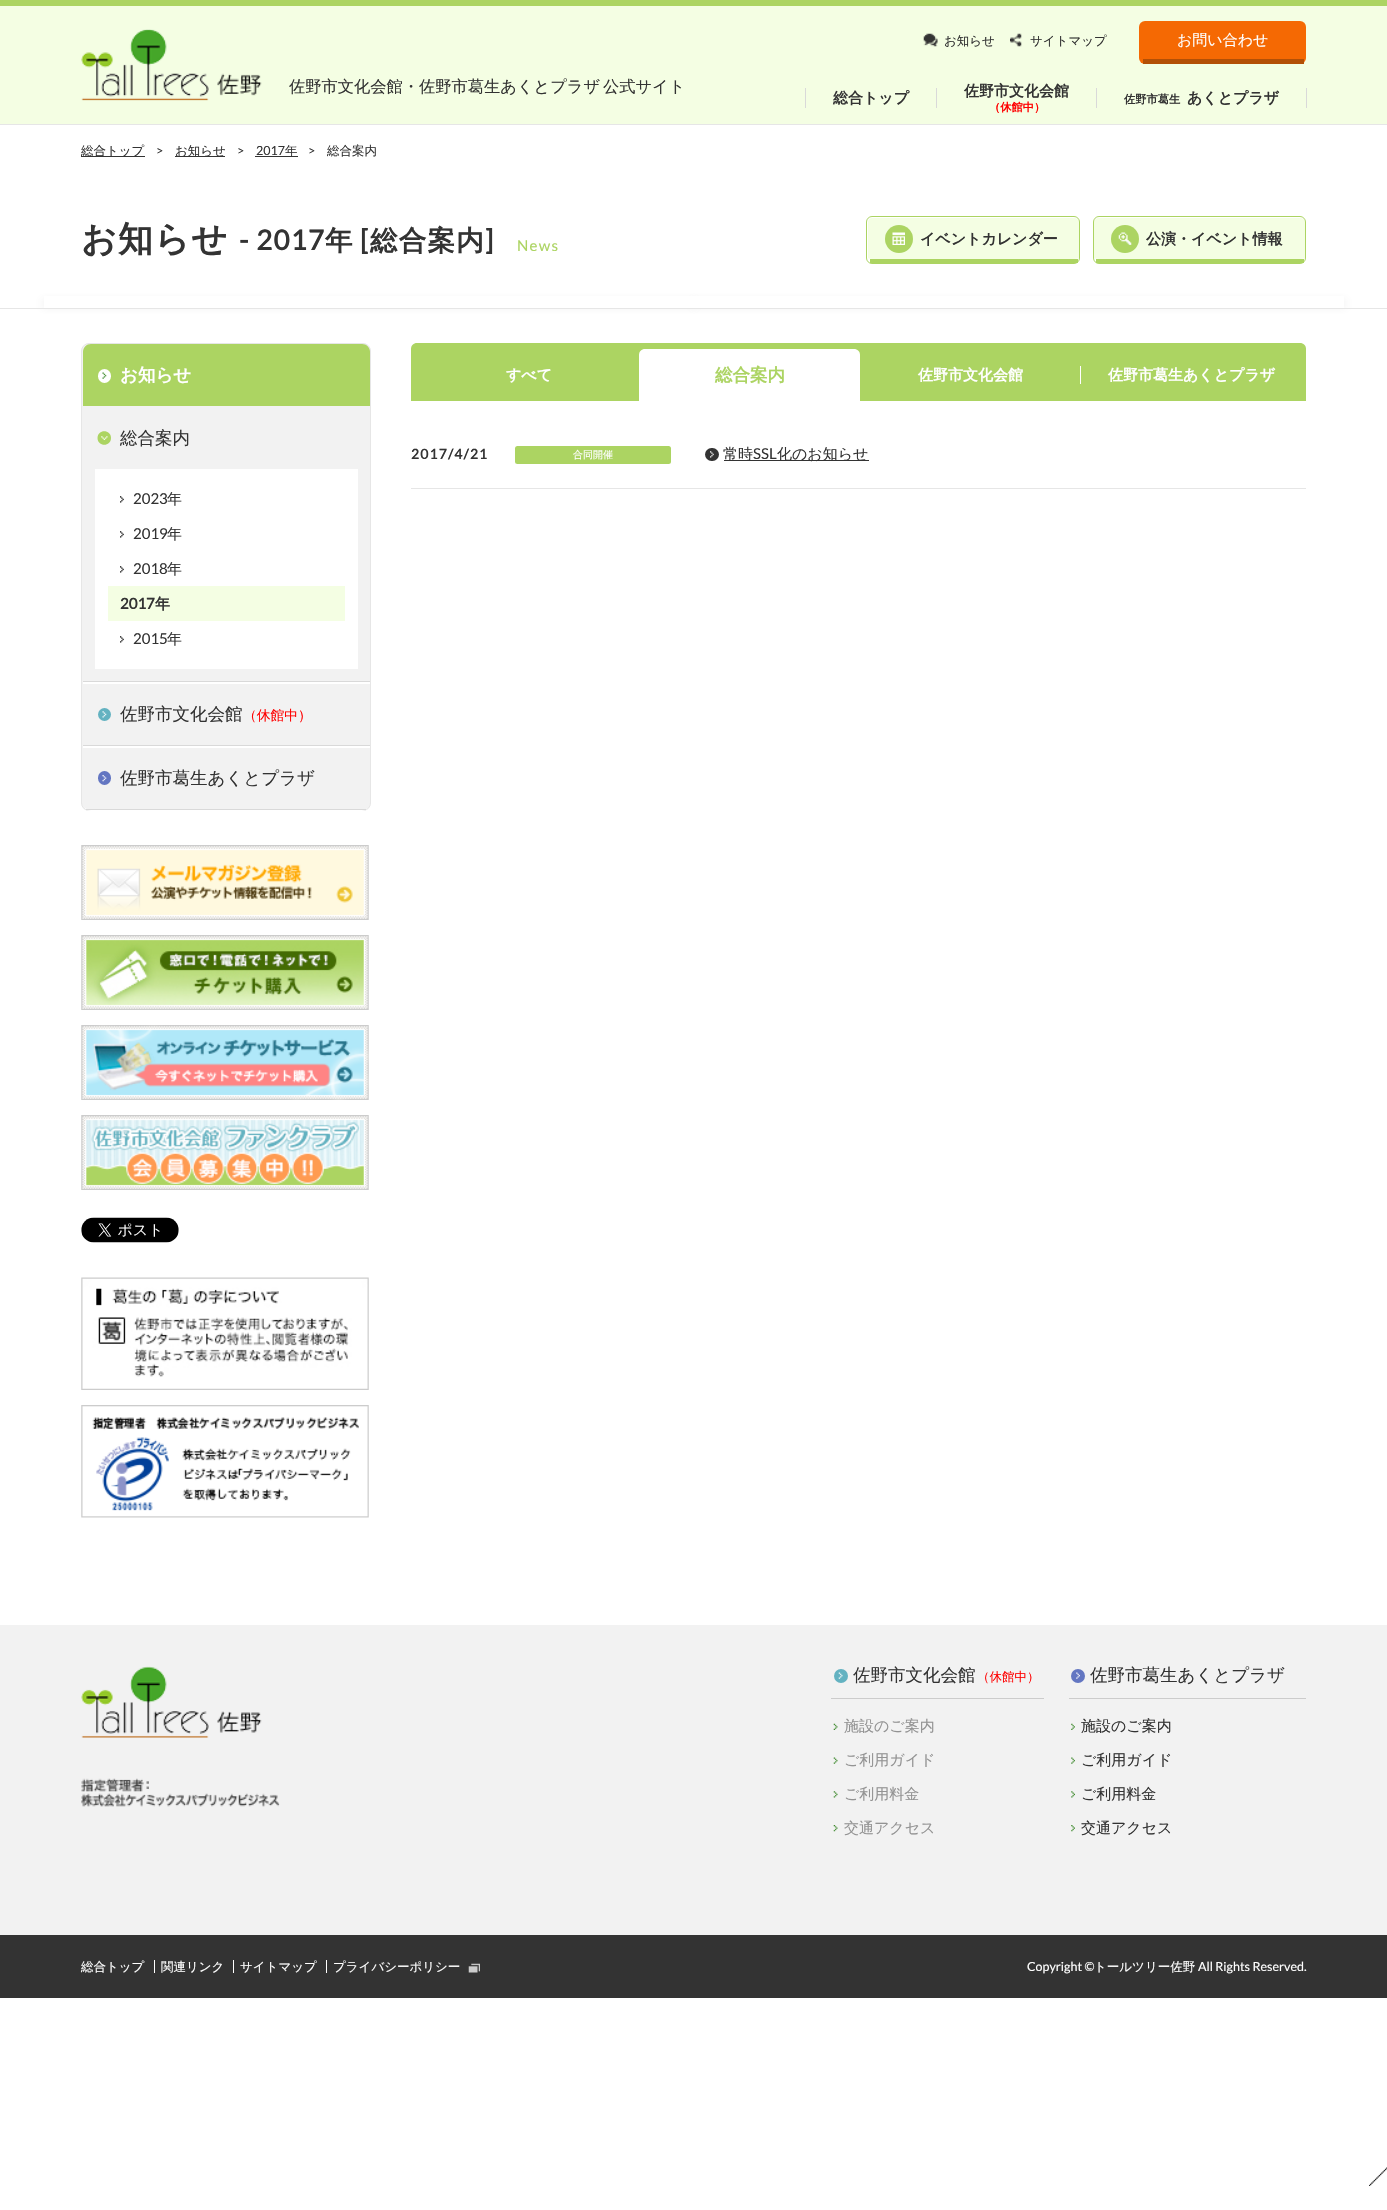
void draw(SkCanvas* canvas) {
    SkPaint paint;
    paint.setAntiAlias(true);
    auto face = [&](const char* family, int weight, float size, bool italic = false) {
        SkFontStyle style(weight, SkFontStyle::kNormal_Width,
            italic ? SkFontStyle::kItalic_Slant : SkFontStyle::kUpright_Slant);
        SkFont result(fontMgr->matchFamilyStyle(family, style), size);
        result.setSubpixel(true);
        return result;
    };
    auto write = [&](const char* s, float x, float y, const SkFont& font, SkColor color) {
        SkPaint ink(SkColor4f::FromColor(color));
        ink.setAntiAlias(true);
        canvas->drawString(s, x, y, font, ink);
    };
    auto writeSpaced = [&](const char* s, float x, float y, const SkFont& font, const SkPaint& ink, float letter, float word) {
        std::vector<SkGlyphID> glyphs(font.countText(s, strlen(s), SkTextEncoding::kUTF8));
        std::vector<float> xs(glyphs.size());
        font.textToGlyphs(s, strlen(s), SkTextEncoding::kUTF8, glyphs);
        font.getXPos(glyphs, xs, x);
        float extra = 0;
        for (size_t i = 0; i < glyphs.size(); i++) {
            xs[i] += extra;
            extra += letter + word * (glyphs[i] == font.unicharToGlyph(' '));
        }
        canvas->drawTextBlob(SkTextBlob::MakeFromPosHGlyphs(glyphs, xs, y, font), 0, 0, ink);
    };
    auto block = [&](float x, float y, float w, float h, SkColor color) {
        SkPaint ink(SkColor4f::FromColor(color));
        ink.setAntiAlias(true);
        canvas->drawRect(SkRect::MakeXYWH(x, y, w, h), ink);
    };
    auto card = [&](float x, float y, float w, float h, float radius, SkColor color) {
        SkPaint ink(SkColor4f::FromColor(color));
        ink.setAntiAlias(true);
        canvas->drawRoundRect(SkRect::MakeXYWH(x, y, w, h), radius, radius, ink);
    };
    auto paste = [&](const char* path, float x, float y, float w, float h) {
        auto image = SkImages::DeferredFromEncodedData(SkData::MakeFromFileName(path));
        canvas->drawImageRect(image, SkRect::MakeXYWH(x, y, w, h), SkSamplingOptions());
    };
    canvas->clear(SK_ColorWHITE);
    block(0, 6, 1387, 118, SkColorSetRGB(244, 254, 227));
    block(0, 0, 1387, 6, SkColorSetRGB(172, 212, 98));
    block(0, 124, 1387, 1, SkColorSetRGB(230, 230, 230));
    paste("pic1.png", 923, 33, 15, 14);
    auto kFont1 = face("WenQuanYi Zen Hei", 500, 12.5f);
    write("お知らせ", 944, 45, kFont1, SkColorSetRGB(51, 51, 51));
    paste("pic2.png", 1010, 33, 12, 14);
    write("サイトマップ", 1030, 45, kFont1, SkColorSetRGB(51, 51, 51));
    card(1139, 21, 167, 43, 6, SkColorSetRGB(245, 105, 3));
    block(1143, 59, 161, 5, SkColorSetRGB(179, 80, 6));
    auto kFont2 = face("WenQuanYi Zen Hei", 500, 15);
    write("お問い合わせ", 1177, 45, kFont2, SK_ColorWHITE);
    paste("pic3.png", 81, 29, 181, 72);
    auto kFont3 = face("WenQuanYi Zen Hei", 500, 16.25f);
    paint.setColor(SkColorSetRGB(51, 51, 51));
    writeSpaced("佐野市文化会館・佐野市葛生あくとプラザ 公式サイト", 289, 92, kFont3, paint, 0, -2);
    block(805, 88, 1, 20, SkColorSetRGB(217, 217, 217));
    auto kFont4 = face("WenQuanYi Zen Hei", 700, 15);
    write("総合トップ", 833, 103, kFont4, SkColorSetRGB(51, 51, 51));
    block(936, 88, 1, 20, SkColorSetRGB(217, 217, 217));
    write("佐野市文化会館", 964, 96, kFont4, SkColorSetRGB(51, 51, 51));
    auto kFont5 = face("WenQuanYi Zen Hei", 700, 11.25f);
    write("（休館中）", 989, 111, kFont5, SkColorSetRGB(255, 0, 0));
    block(1096, 88, 1, 20, SkColorSetRGB(217, 217, 217));
    write("佐野市葛生", 1124, 103, kFont5, SkColorSetRGB(51, 51, 51));
    write("あくとプラザ", 1187, 103, kFont4, SkColorSetRGB(51, 51, 51));
    block(1306, 88, 1, 20, SkColorSetRGB(217, 217, 217));
    paint.setColor(SkColorSetRGB(119, 119, 119));
    paint.setMaskFilter(SkMaskFilter::MakeBlur(kNormal_SkBlurStyle, 4.5f));
    canvas->drawRect(SkRect::MakeXYWH(44, 303, 650, 1), paint);
    paint.setMaskFilter(nullptr);
    paint.setMaskFilter(SkMaskFilter::MakeBlur(kNormal_SkBlurStyle, 4.5f));
    canvas->drawRect(SkRect::MakeXYWH(694, 303, 650, 1), paint);
    paint.setMaskFilter(nullptr);
    block(0, 308, 1387, 1, SkColorSetRGB(230, 230, 230));
    block(44, 296, 1300, 12, SK_ColorWHITE);
    block(81, 156, 64, 1, SkColorSetRGB(51, 51, 51));
    write("総合トップ", 81, 155, kFont1, SkColorSetRGB(51, 51, 51));
    auto kFont6 = face("Lato", 400, 12.5f);
    write(">", 156, 155, kFont6, SkColorSetRGB(51, 51, 51));
    block(175, 156, 50, 1, SkColorSetRGB(51, 51, 51));
    write("お知らせ", 175, 155, kFont1, SkColorSetRGB(51, 51, 51));
    write(">", 237, 155, kFont6, SkColorSetRGB(51, 51, 51));
    write("2017", 256, 155, kFont6, SkColorSetRGB(51, 51, 51));
    block(255, 156, 43, 1, SkColorSetRGB(51, 51, 51));
    write("年", 285, 155, kFont1, SkColorSetRGB(51, 51, 51));
    write(">", 308, 155, kFont6, SkColorSetRGB(51, 51, 51));
    write("総合案内", 327, 155, kFont1, SkColorSetRGB(51, 51, 51));
    auto kFont7 = face("WenQuanYi Zen Hei", 700, 35);
    paint.setColor(SkColorSetRGB(51, 51, 51));
    writeSpaced("お知らせ", 81, 251, kFont7, paint, 1.25f, 0);
    auto kFont8 = face("Lato", 700, 27.5f);
    writeSpaced("- 2017", 239, 250, kFont8, paint, 1.25f, 0);
    auto kFont9 = face("WenQuanYi Zen Hei", 700, 27.5f);
    writeSpaced("年", 325, 250, kFont9, paint, 1.25f, 0);
    writeSpaced("[", 360, 250, kFont8, paint, 1.25f, 0);
    writeSpaced("総合案内", 370, 250, kFont9, paint, 1.25f, 0);
    writeSpaced("]", 485, 250, kFont8, paint, 1.25f, 0);
    auto kFont10 = face("Lato", 400, 15);
    paint.setColor(SkColorSetRGB(172, 212, 98));
    writeSpaced("News", 517, 251, kFont10, paint, 1.25f, 0);
    paint.setColor(SkColorSetRGB(244, 254, 227));
    canvas->drawPath(SkPathBuilder().moveTo(872, 218).lineTo(1074, 218).cubicTo(1077, 218, 1079, 220, 1079, 222).lineTo(1079, 258).cubicTo(1079, 258, 1077, 259, 1074, 259).lineTo(872, 259).cubicTo(870, 259, 868, 258, 868, 258).lineTo(868, 222).cubicTo(868, 220, 870, 218, 872, 218).close().detach(), paint);
    paint.setStyle(SkPaint::kStroke_Style);
    paint.setStrokeWidth(1);
    paint.setColor(SkColorSetRGB(172, 212, 98));
    canvas->drawRoundRect(SkRect::MakeXYWH(866.5f, 216.5f, 213, 47), 5.5f, 5.5f, paint);
    block(870, 259, 208, 4, SkColorSetRGB(172, 212, 98));
    paint.setStyle(SkPaint::kFill_Style);
    canvas->drawCircle(899, 239, 14, paint);
    paste("pic4.png", 892, 232, 13, 13);
    write("イベントカレンダー", 920, 244, kFont4, SkColorSetRGB(51, 51, 51));
    paint.setColor(SkColorSetRGB(244, 254, 227));
    canvas->drawPath(SkPathBuilder().moveTo(1099, 218).lineTo(1300, 218).cubicTo(1303, 218, 1305, 220, 1305, 222).lineTo(1305, 258).cubicTo(1305, 258, 1303, 259, 1300, 259).lineTo(1099, 259).cubicTo(1096, 259, 1094, 258, 1094, 258).lineTo(1094, 222).cubicTo(1094, 220, 1096, 218, 1099, 218).close().detach(), paint);
    paint.setStyle(SkPaint::kStroke_Style);
    paint.setColor(SkColorSetRGB(172, 212, 98));
    canvas->drawRoundRect(SkRect::MakeXYWH(1093.5f, 216.5f, 212, 47), 5.5f, 5.5f, paint);
    block(1096, 259, 208, 4, SkColorSetRGB(172, 212, 98));
    paint.setStyle(SkPaint::kFill_Style);
    canvas->drawCircle(1125, 239, 14, paint);
    paste("pic5.png", 1118, 232, 14, 13);
    write("公演・イベント情報", 1146, 244, kFont4, SkColorSetRGB(51, 51, 51));
    paint.setColor(SkColorSetRGB(242, 242, 242));
    canvas->drawRoundRect(SkRect::MakeXYWH(81.5f, 343.5f, 289, 467), 7.5f, 7.5f, paint);
    paint.setStyle(SkPaint::kStroke_Style);
    paint.setColor(SkColorSetRGB(230, 230, 230));
    canvas->drawRoundRect(SkRect::MakeXYWH(81.5f, 343.5f, 289, 467), 7.5f, 7.5f, paint);
    paint.setStyle(SkPaint::kFill_Style);
    paint.setColor(SkColorSetRGB(172, 212, 98));
    canvas->drawPath(SkPathBuilder().moveTo(91, 344).lineTo(362, 344).cubicTo(366.5f, 344, 370, 347.5f, 370, 352).lineTo(370, 406).lineTo(83, 406).lineTo(83, 352).cubicTo(83, 347.5f, 86.5f, 344, 91, 344).close().detach(), paint);
    card(98, 369, 13, 14, 6.5f, SK_ColorWHITE);
    paste("pic6.png", 102, 372, 5, 7);
    auto kFont11 = face("WenQuanYi Zen Hei", 700, 17.5f);
    write("お知らせ", 120, 381, kFont11, SK_ColorWHITE);
    block(83, 682, 287, 2, SK_ColorWHITE);
    block(83, 681, 287, 1, SkColorSetRGB(217, 217, 217));
    canvas->drawPath(SkPathBuilder().moveTo(111, 438).cubicTo(111, 447, 97.5f, 447, 97.5f, 438).cubicTo(97.5f, 429, 111, 429, 111, 438).close().detach(), paint);
    paste("pic7.png", 101, 436, 7, 4);
    auto kFont12 = face("WenQuanYi Zen Hei", 500, 17.5f);
    write("総合案内", 120, 444, kFont12, SkColorSetRGB(51, 51, 51));
    block(95, 469, 263, 200, SK_ColorWHITE);
    paste("pic8.png", 120, 496, 4, 7);
    write("2023", 133, 504, kFont10, SkColorSetRGB(51, 51, 51));
    write("年", 167, 504, kFont2, SkColorSetRGB(51, 51, 51));
    paste("pic8.png", 120, 531, 4, 7);
    write("2019", 133, 539, kFont10, SkColorSetRGB(51, 51, 51));
    write("年", 167, 539, kFont2, SkColorSetRGB(51, 51, 51));
    paste("pic8.png", 120, 566, 4, 7);
    write("2018", 133, 574, kFont10, SkColorSetRGB(51, 51, 51));
    write("年", 167, 574, kFont2, SkColorSetRGB(51, 51, 51));
    block(108, 586, 237, 35, SkColorSetRGB(244, 254, 227));
    auto kFont13 = face("Lato", 700, 15);
    write("2017", 120, 609, kFont13, SkColorSetRGB(51, 51, 51));
    write("年", 155, 609, kFont4, SkColorSetRGB(51, 51, 51));
    paste("pic8.png", 120, 636, 4, 7);
    write("2015", 133, 644, kFont10, SkColorSetRGB(51, 51, 51));
    write("年", 167, 644, kFont2, SkColorSetRGB(51, 51, 51));
    block(83, 746, 287, 2, SK_ColorWHITE);
    block(83, 745, 287, 1, SkColorSetRGB(217, 217, 217));
    paint.setColor(SkColorSetRGB(99, 178, 193));
    canvas->drawCircle(104.5f, 714.5f, 6.5f, paint);
    paste("pic9.png", 102, 711, 5, 7);
    write("佐野市文化会館", 120, 720, kFont12, SkColorSetRGB(51, 51, 51));
    auto kFont14 = face("WenQuanYi Zen Hei", 500, 13.75f);
    write("（休館中）", 243, 720, kFont14, SkColorSetRGB(255, 0, 0));
    paint.setColor(SK_ColorWHITE);
    canvas->drawPath(SkPathBuilder().moveTo(84, 807).cubicTo(86, 810, 88, 811, 91, 811).lineTo(362, 811).cubicTo(366, 811, 370, 807, 370, 803).lineTo(370, 802).cubicTo(370, 807, 367, 810, 362, 810).lineTo(90, 810).cubicTo(88, 810, 86, 809, 84, 807).close().detach(), paint);
    block(86, 809, 280, 1, SkColorSetRGB(217, 217, 217));
    card(98, 771, 13, 14, 6.5f, SkColorSetRGB(99, 118, 194));
    paste("pic10.png", 102, 775, 5, 7);
    write("佐野市葛生あくとプラザ", 120, 784, kFont12, SkColorSetRGB(51, 51, 51));
    paste("pic11.png", 81, 845, 288, 75);
    paste("pic12.png", 81, 935, 288, 75);
    paste("pic13.png", 81, 1025, 288, 75);
    paste("pic14.png", 81, 1115, 288, 75);
    paste("pic15.png", 81, 1217, 98, 26);
    paste("pic16.png", 81, 1277, 288, 113);
    paste("pic17.png", 81, 1405, 288, 113);
    paint.setColor(SkColorSetRGB(172, 212, 98));
    canvas->drawPath(SkPathBuilder().moveTo(417, 343).lineTo(1300, 343).cubicTo(1303.5f, 343, 1306, 345.5f, 1306, 349).lineTo(1306, 401).lineTo(411, 401).lineTo(411, 349).cubicTo(411, 345.5f, 413.5f, 343, 417, 343).close().detach(), paint);
    write("すべて", 506, 380, kFont4, SK_ColorWHITE);
    paint.setColor(SK_ColorWHITE);
    canvas->drawPath(SkPathBuilder().moveTo(645, 349).lineTo(854, 349).cubicTo(857.5f, 349, 860, 351.5f, 860, 355).lineTo(860, 401).lineTo(639, 401).lineTo(639, 355).cubicTo(639, 351.5f, 641.5f, 349, 645, 349).close().detach(), paint);
    write("総合案内", 715, 381, kFont11, SkColorSetRGB(172, 212, 98));
    block(1080, 366, 1, 18, SK_ColorWHITE);
    write("佐野市文化会館", 918, 380, kFont4, SK_ColorWHITE);
    write("佐野市葛生あくとプラザ", 1108, 380, kFont4, SK_ColorWHITE);
    block(411, 488, 895, 1, SkColorSetRGB(230, 230, 230));
    auto kFont15 = face("Lato", 700, 13.75f);
    paint.setColor(SkColorSetRGB(51, 51, 51));
    writeSpaced("2017/4/21", 411, 459, kFont15, paint, 1.25f, 0);
    card(515, 446, 156, 18, 2.5f, SkColorSetRGB(172, 212, 98));
    auto kFont16 = face("WenQuanYi Zen Hei", 500, 10);
    write("合同開催", 573, 458, kFont16, SK_ColorWHITE);
    card(705, 448, 14, 13, 6.5f, SkColorSetRGB(51, 51, 51));
    paste("pic18.png", 710, 451, 4, 7);
    block(724, 460, 145, 1, SkColorSetRGB(51, 51, 51));
    write("常時", 723, 459, kFont2, SkColorSetRGB(51, 51, 51));
    write("SSL", 753, 459, kFont10, SkColorSetRGB(51, 51, 51));
    write("化のお知らせ", 777, 459, kFont2, SkColorSetRGB(51, 51, 51));
    block(0, 1625, 1387, 310, SkColorSetRGB(242, 242, 242));
    paste("pic19.png", 81, 1666, 181, 72);
    paste("pic20.png", 81, 1778, 199, 29);
    block(831, 1698, 213, 1, SkColorSetRGB(204, 204, 204));
    paint.setColor(SkColorSetRGB(99, 178, 193));
    canvas->drawCircle(841, 1676, 7, paint);
    paste("pic21.png", 838, 1672, 5, 7);
    write("佐野市文化会館", 853, 1681, kFont12, SkColorSetRGB(51, 51, 51));
    write("（休館中）", 977, 1681, kFont1, SkColorSetRGB(255, 0, 0));
    paste("pic22.png", 833, 1723, 5, 7);
    write("施設のご案内", 844, 1731, kFont2, SkColorSetRGB(147, 147, 147));
    paste("pic23.png", 833, 1757, 5, 7);
    write("ご利用ガイド", 844, 1765, kFont2, SkColorSetRGB(147, 147, 147));
    paste("pic24.png", 833, 1791, 5, 7);
    write("ご利用料金", 844, 1799, kFont2, SkColorSetRGB(147, 147, 147));
    paste("pic25.png", 833, 1825, 5, 7);
    write("交通アクセス", 844, 1833, kFont2, SkColorSetRGB(147, 147, 147));
    block(1069, 1698, 237, 1, SkColorSetRGB(204, 204, 204));
    paint.setColor(SkColorSetRGB(99, 118, 194));
    canvas->drawCircle(1078, 1676, 7, paint);
    paste("pic26.png", 1076, 1672, 4, 7);
    write("佐野市葛生あくとプラザ", 1090, 1681, kFont12, SkColorSetRGB(51, 51, 51));
    paste("pic27.png", 1071, 1723, 4, 7);
    write("施設のご案内", 1081, 1731, kFont2, SkColorSetRGB(51, 51, 51));
    paste("pic28.png", 1071, 1757, 4, 7);
    write("ご利用ガイド", 1081, 1765, kFont2, SkColorSetRGB(51, 51, 51));
    paste("pic29.png", 1071, 1791, 4, 7);
    write("ご利用料金", 1081, 1799, kFont2, SkColorSetRGB(51, 51, 51));
    paste("pic30.png", 1071, 1825, 4, 7);
    write("交通アクセス", 1081, 1833, kFont2, SkColorSetRGB(51, 51, 51));
    block(0, 1935, 1387, 63, SkColorSetRGB(51, 51, 51));
    write("総合トップ", 81, 1971, kFont1, SK_ColorWHITE);
    block(154, 1960, 1, 13, SK_ColorWHITE);
    write("関連リンク", 161, 1971, kFont1, SK_ColorWHITE);
    block(233, 1960, 1, 13, SK_ColorWHITE);
    write("サイトマップ", 240, 1971, kFont1, SK_ColorWHITE);
    block(326, 1960, 1, 13, SK_ColorWHITE);
    write("プライバシーポリシー", 333, 1971, kFont1, SK_ColorWHITE);
    paste("pic31.png", 468, 1963, 12, 10);
    write("Copyright ©", 1027, 1971, kFont6, SK_ColorWHITE);
    write("トールツリー佐野", 1094, 1971, kFont1, SK_ColorWHITE);
    write("All Rights Reserved.", 1198, 1971, kFont6, SK_ColorWHITE);
    paste("pic32.png", 1369, 2167, 18, 19);
}
